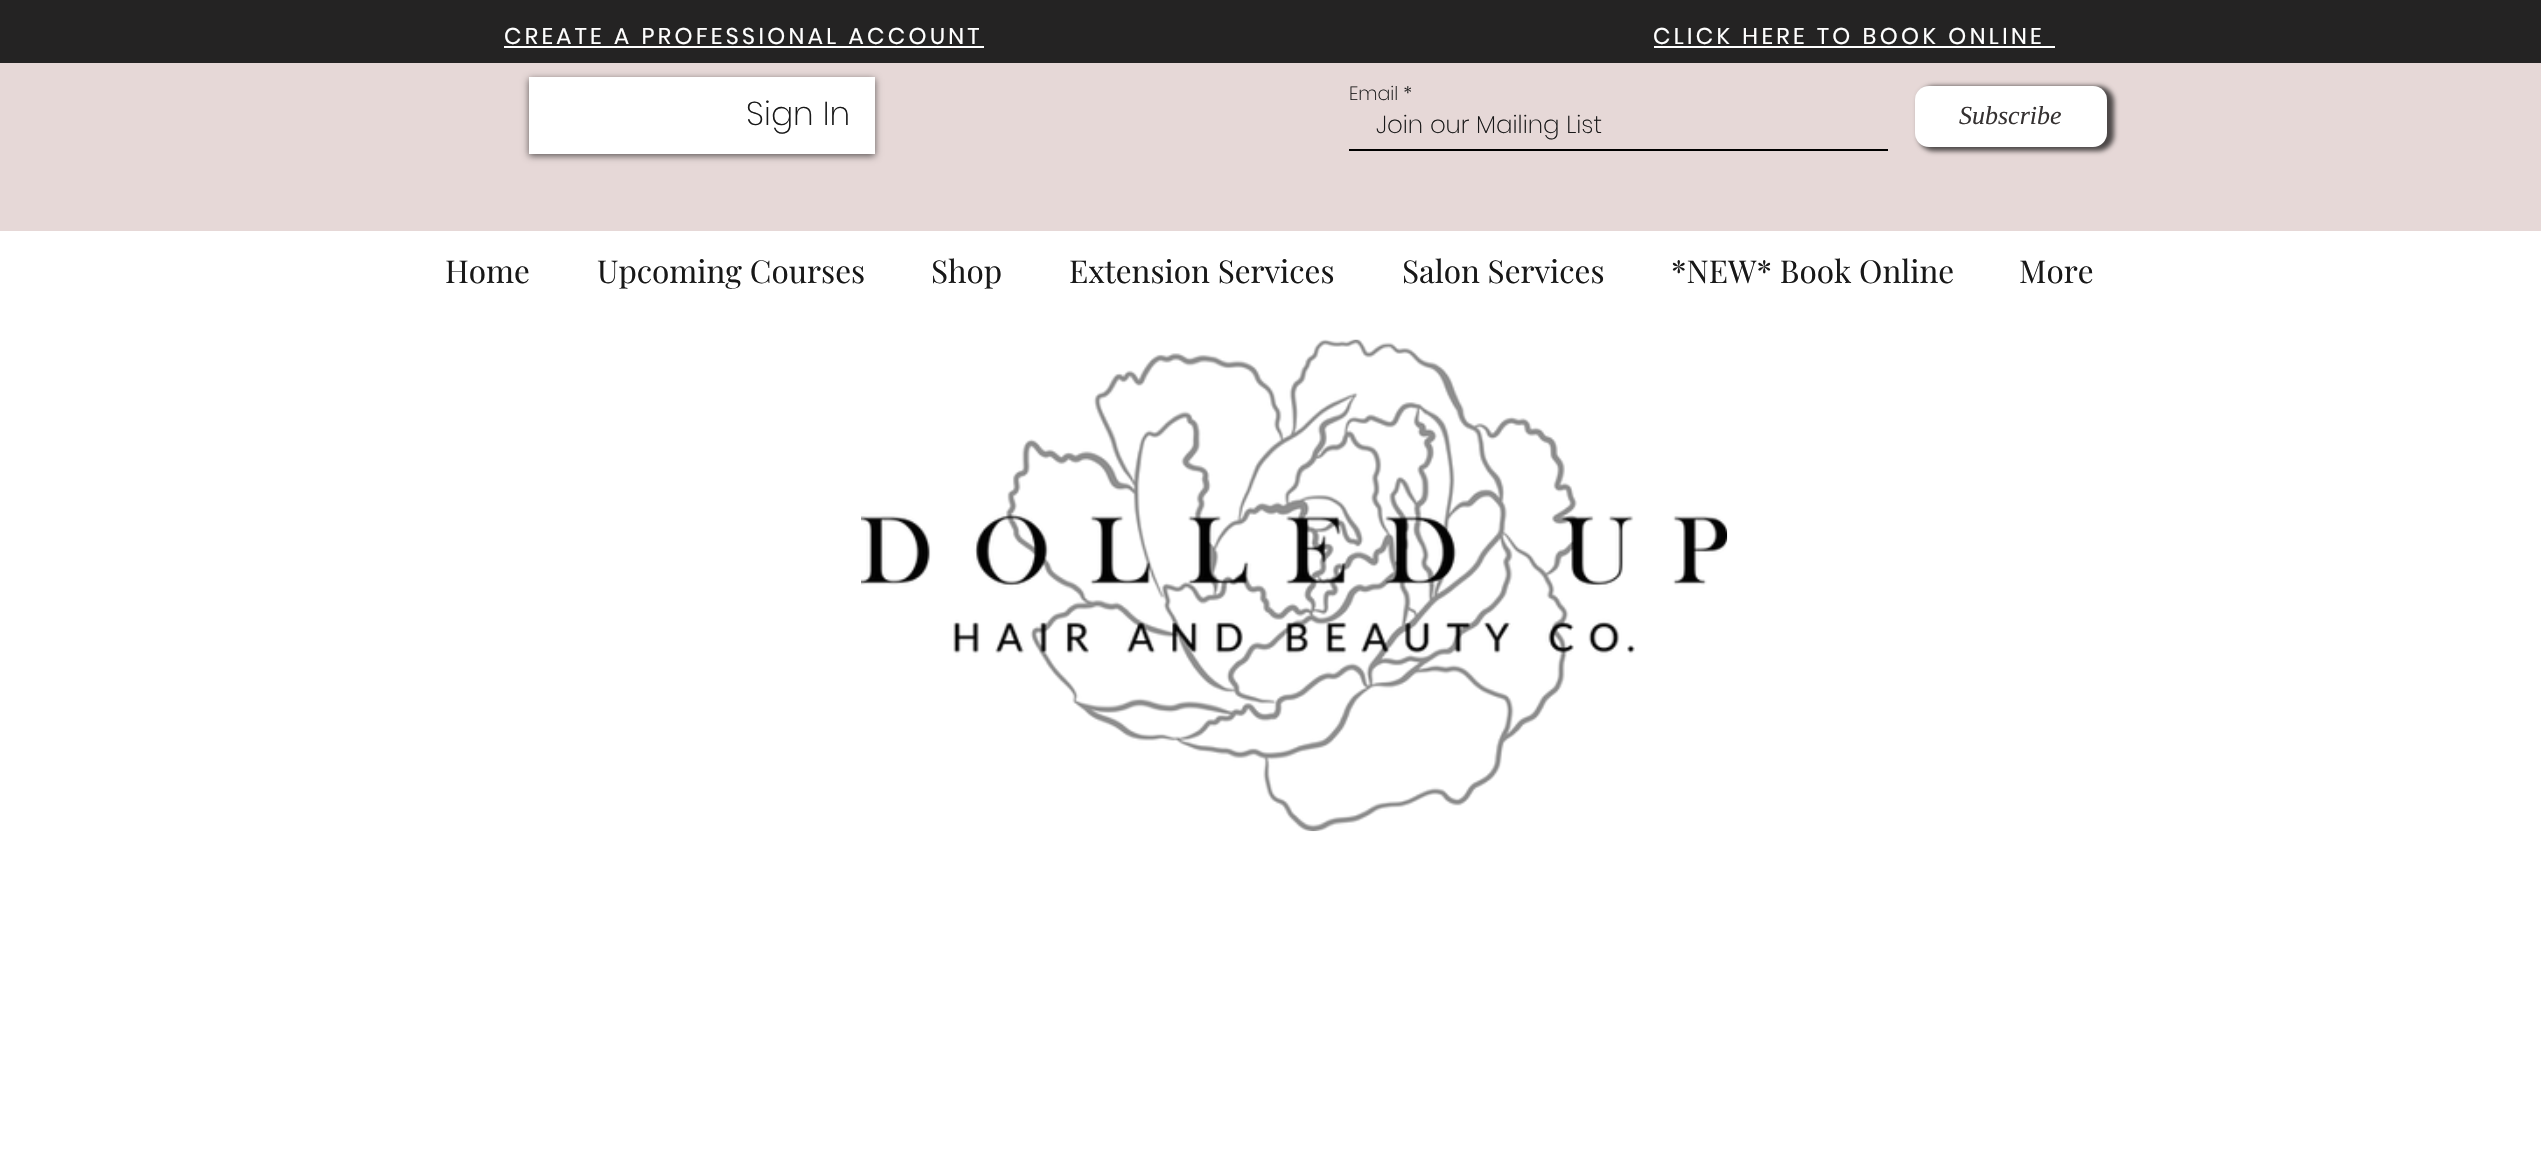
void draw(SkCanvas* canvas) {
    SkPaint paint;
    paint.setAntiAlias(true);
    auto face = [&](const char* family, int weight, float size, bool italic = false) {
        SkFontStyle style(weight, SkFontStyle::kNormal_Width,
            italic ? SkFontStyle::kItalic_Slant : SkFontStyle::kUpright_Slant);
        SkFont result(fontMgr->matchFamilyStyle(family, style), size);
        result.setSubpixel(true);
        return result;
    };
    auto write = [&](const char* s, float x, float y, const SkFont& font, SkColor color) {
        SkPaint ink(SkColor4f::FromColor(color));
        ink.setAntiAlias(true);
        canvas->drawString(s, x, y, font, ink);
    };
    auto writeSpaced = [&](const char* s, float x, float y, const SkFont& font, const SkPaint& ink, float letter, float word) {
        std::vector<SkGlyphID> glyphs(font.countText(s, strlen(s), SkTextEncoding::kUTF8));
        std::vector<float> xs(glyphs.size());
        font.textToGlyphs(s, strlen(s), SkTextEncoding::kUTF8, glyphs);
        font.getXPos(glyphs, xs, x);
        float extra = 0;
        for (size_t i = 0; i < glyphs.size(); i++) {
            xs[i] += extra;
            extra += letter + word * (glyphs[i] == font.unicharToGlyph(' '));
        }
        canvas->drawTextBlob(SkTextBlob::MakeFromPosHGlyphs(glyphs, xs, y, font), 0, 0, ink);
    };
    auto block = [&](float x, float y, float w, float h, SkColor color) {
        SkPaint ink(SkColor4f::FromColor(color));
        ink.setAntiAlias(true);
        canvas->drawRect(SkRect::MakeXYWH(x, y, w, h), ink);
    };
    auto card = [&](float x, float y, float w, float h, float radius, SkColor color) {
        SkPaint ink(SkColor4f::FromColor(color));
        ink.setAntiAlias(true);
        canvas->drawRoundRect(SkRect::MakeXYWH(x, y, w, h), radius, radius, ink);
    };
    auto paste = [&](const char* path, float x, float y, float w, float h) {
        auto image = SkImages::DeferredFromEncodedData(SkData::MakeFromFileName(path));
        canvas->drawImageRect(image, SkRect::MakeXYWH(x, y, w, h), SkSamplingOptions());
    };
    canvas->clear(SK_ColorWHITE);
    block(0, 0, 2541, 63, SkColorSetRGB(36, 35, 35));
    auto kFont1 = face("Poppins", 400, 22.75f);
    paint.setColor(SK_ColorWHITE);
    writeSpaced("CREATE A PROFESSIONAL ACCOUNT", 504, 44, kFont1, paint, 3.4f, 0);
    block(504, 46, 480, 2, SK_ColorWHITE);
    writeSpaced("CLICK HERE TO BOOK ONLINE", 1653, 44, kFont1, paint, 3.4f, 0);
    block(1654, 46, 401, 2, SK_ColorWHITE);
    block(0, 63, 2541, 168, SkColorSetRGB(230, 216, 215));
    paint.setColor(SkColorSetARGB(153, 0, 0, 0));
    paint.setMaskFilter(SkMaskFilter::MakeBlur(kNormal_SkBlurStyle, 3.5f));
    canvas->drawRect(SkRect::MakeXYWH(529, 79, 346, 77), paint);
    paint.setMaskFilter(nullptr);
    block(529, 77, 346, 77, SK_ColorWHITE);
    auto kFont2 = face("Poppins", 200, 33);
    write("Sign In", 746, 125, kFont2, SkColorSetRGB(24, 24, 24));
    auto kFont3 = face("Poppins", 200, 19);
    write("Email *", 1349, 100, kFont3, SkColorSetRGB(24, 24, 24));
    block(1349, 149, 539, 2, SK_ColorBLACK);
    auto kFont4 = face("Poppins", 200, 24.5f);
    write("Join our Mailing List", 1376, 133, kFont4, SkColorSetRGB(24, 24, 24));
    paint.setColor(SkColorSetARGB(171, 0, 0, 0));
    paint.setMaskFilter(SkMaskFilter::MakeBlur(kNormal_SkBlurStyle, 2.5f));
    canvas->drawRoundRect(SkRect::MakeXYWH(1918, 86, 196, 65), 16, 16, paint);
    paint.setMaskFilter(nullptr);
    card(1915, 86, 192, 61, 14, SK_ColorWHITE);
    auto kFont5 = face("Liberation Serif", 400, 26, true);
    write("Subscribe", 1959, 124, kFont5, SkColorSetRGB(53, 49, 49));
    auto kFont6 = face("Playfair Display", 400, 31.5f);
    write("Home", 445, 283, kFont6, SkColorSetRGB(24, 24, 24));
    write("Upcoming Courses", 597, 283, kFont6, SkColorSetRGB(24, 24, 24));
    write("Shop", 931, 283, kFont6, SkColorSetRGB(24, 24, 24));
    write("Extension Services", 1069, 283, kFont6, SkColorSetRGB(24, 24, 24));
    write("Salon Services", 1402, 283, kFont6, SkColorSetRGB(24, 24, 24));
    write("*NEW* Book Online", 1671, 283, kFont6, SkColorSetRGB(24, 24, 24));
    write("More", 2019, 283, kFont6, SkColorSetRGB(24, 24, 24));
    paste("pic1.png", 861, 339, 867, 493);
}
